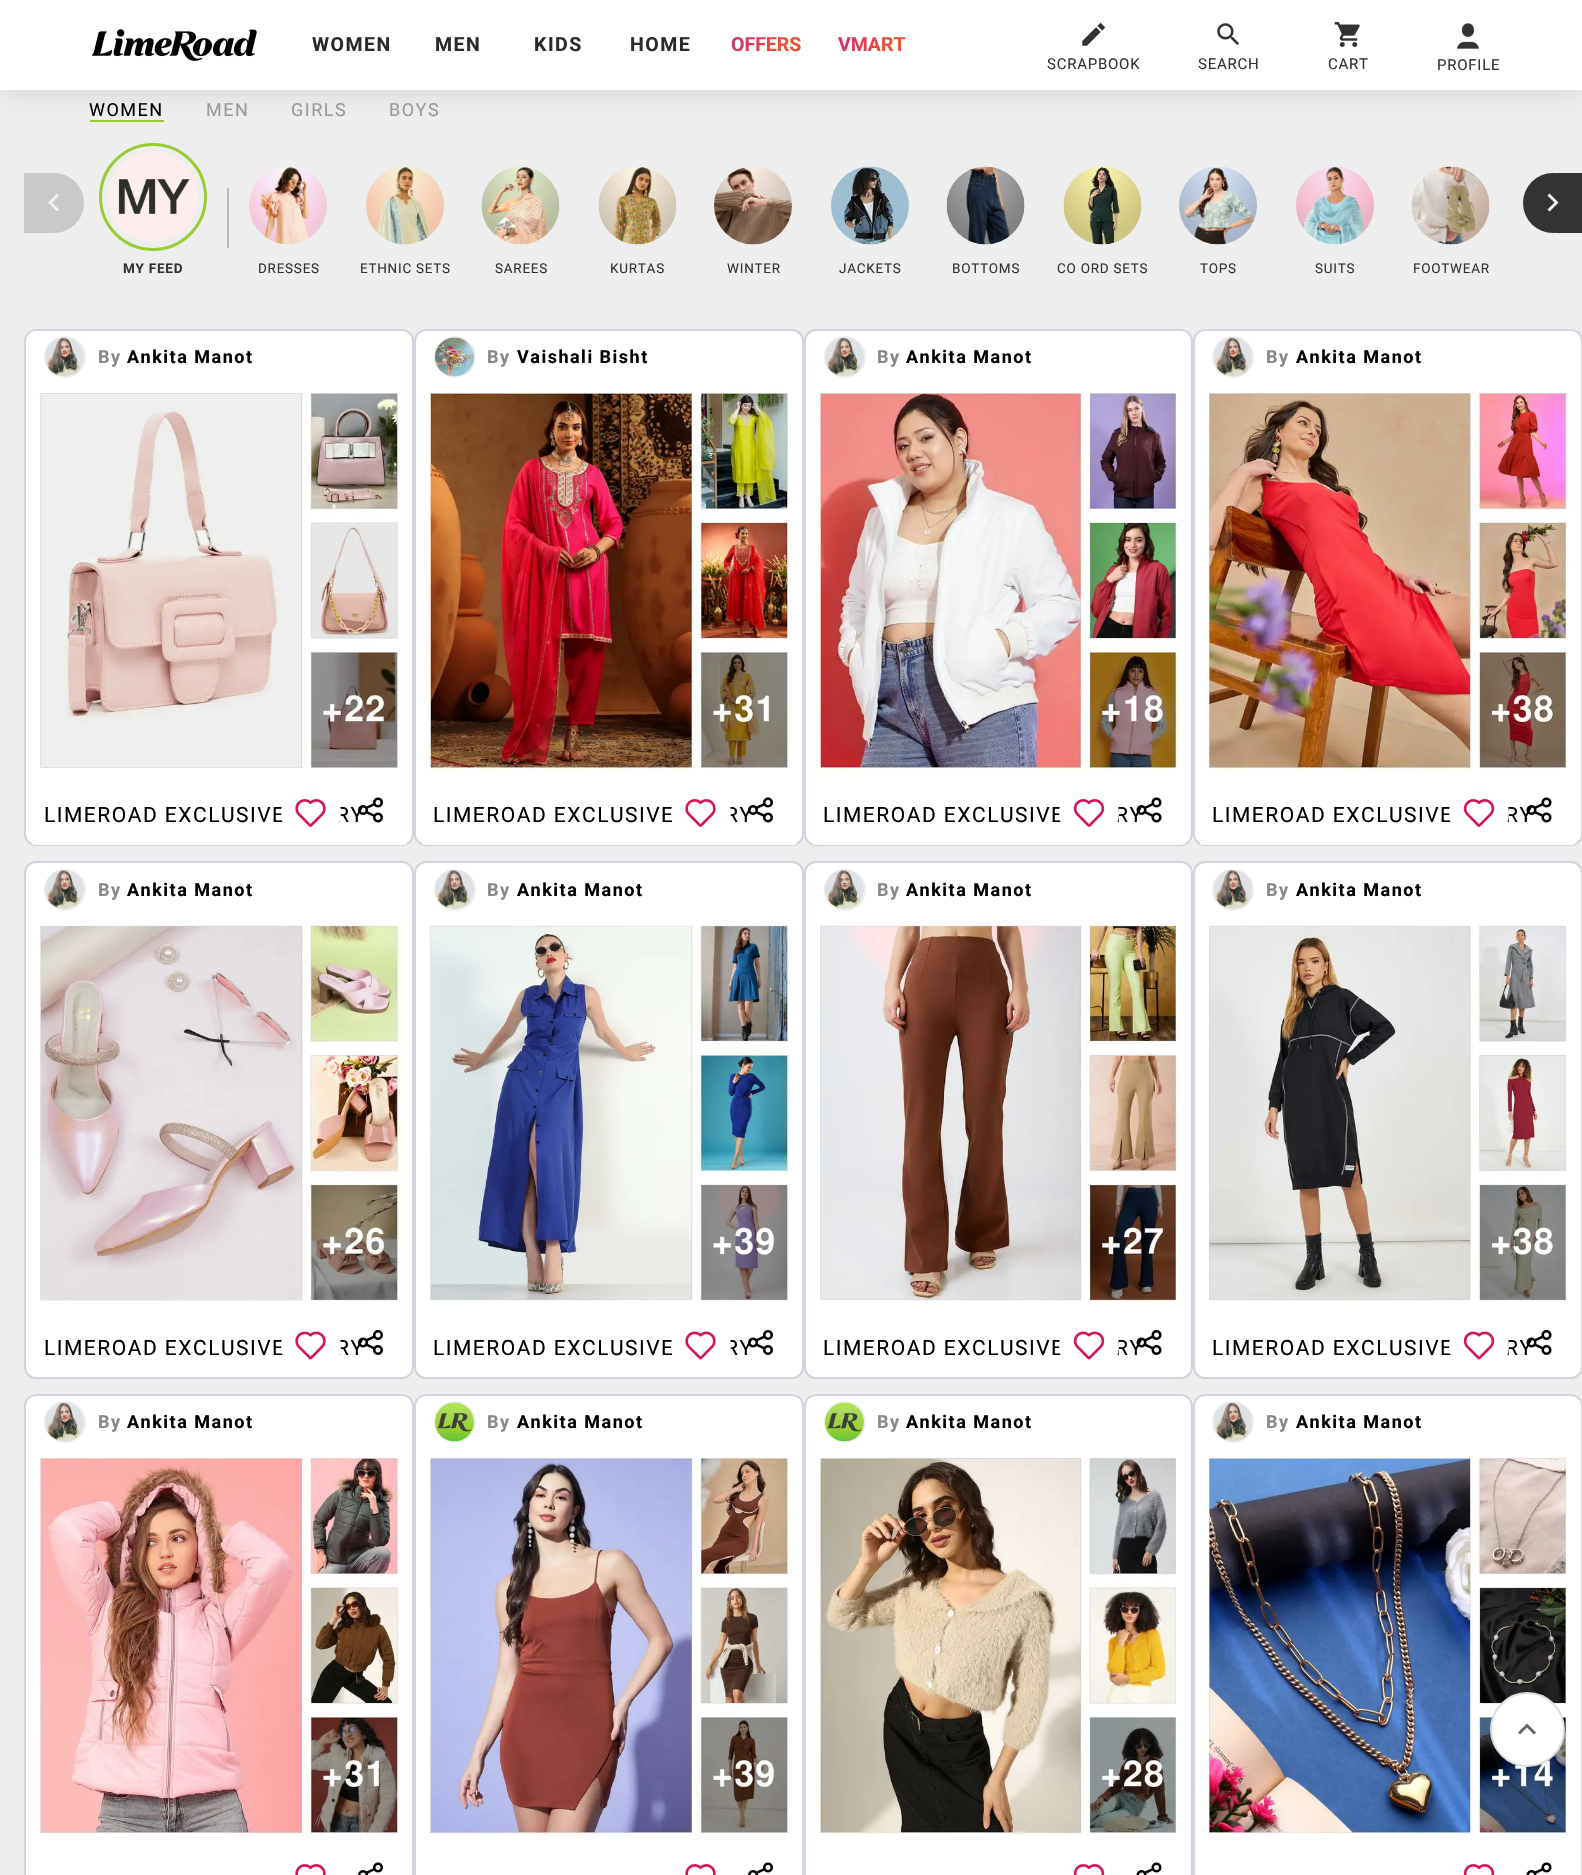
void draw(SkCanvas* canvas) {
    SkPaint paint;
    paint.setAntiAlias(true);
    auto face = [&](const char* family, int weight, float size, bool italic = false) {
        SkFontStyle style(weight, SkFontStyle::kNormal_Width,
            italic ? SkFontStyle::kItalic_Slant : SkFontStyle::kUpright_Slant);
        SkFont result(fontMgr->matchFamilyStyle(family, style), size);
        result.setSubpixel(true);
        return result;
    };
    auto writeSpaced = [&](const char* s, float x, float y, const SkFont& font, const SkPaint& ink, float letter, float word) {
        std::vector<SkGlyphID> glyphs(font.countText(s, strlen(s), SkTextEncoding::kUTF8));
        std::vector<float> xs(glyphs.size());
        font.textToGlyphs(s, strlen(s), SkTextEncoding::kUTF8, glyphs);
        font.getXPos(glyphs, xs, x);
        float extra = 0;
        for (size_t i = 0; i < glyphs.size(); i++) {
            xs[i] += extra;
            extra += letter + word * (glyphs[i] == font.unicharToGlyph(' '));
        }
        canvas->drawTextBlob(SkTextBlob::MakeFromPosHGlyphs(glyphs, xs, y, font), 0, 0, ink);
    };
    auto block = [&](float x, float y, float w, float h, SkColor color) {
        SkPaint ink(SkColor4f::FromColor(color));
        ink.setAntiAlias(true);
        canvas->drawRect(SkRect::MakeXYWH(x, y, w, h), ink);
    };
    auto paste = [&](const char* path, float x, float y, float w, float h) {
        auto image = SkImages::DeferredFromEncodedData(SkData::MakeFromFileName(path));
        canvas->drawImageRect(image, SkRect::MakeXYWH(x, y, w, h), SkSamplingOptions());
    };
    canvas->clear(SkColorSetRGB(238, 238, 238));
    block(90, 120, 74, 2, SkColorSetRGB(153, 204, 51));
    paint.setColor(SkColorSetARGB(41, 85, 85, 85));
    paint.setMaskFilter(SkMaskFilter::MakeBlur(kNormal_SkBlurStyle, 12));
    canvas->drawRect(SkRect::MakeXYWH(0, 3, 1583, 90), paint);
    paint.setMaskFilter(nullptr);
    block(0, 0, 1582, 90, SK_ColorWHITE);
    paste("pic1.png", 92, 29, 165, 32);
    auto kFont1 = face("Roboto", 700, 19.5f);
    paint.setColor(SkColorSetRGB(42, 42, 42));
    writeSpaced("WOMEN", 312, 51, kFont1, paint, 1.5f, 0);
    writeSpaced("MEN", 435, 51, kFont1, paint, 1.5f, 0);
    writeSpaced("KIDS", 534, 51, kFont1, paint, 1.5f, 0);
    writeSpaced("HOME", 630, 51, kFont1, paint, 1.5f, 0);
    {
        const SkColor colors[] = {SkColorSetRGB(206, 41, 126), SkColorSetRGB(237, 81, 51)};
        const float stops[] = {0, 0.73f};
        const SkPoint ends[] = {{734, 23}, {796, 63}};
        paint.setShader(SkGradientShader::MakeLinear(ends, colors, stops, 2, SkTileMode::kClamp));
        paint.setAlpha(255);
    }
    canvas->drawString("OFFERS", 731, 51, kFont1, paint);
    {
        const SkColor colors[] = {SkColorSetRGB(206, 41, 126), SkColorSetRGB(237, 81, 51)};
        const float stops[] = {0, 0.73f};
        const SkPoint ends[] = {{840, 24}, {900, 63}};
        paint.setShader(SkGradientShader::MakeLinear(ends, colors, stops, 2, SkTileMode::kClamp));
        paint.setAlpha(255);
    }
    canvas->drawString("VMART", 838, 51, kFont1, paint);
    paste("pic2.png", 1082, 22, 24, 24);
    auto kFont2 = face("Roboto", 400, 15);
    paint.setShader(nullptr);
    paint.setColor(SkColorSetRGB(51, 51, 51));
    writeSpaced("SCRAPBOOK", 1047, 69, kFont2, paint, 0.75f, 0);
    paste("pic3.png", 1217, 23, 22, 22);
    writeSpaced("SEARCH", 1198, 69, kFont2, paint, 0.75f, 0);
    paste("pic4.png", 1334, 22, 26, 25);
    writeSpaced("CART", 1328, 69, kFont2, paint, 0.75f, 0);
    paste("pic5.png", 1457, 23, 22, 26);
    writeSpaced("PROFILE", 1437, 70, kFont2, paint, 0.75f, 0);
    auto kFont3 = face("Roboto", 400, 18);
    paint.setColor(SK_ColorBLACK);
    writeSpaced("WOMEN", 89, 116, kFont3, paint, 1.5f, 0);
    paint.setColor(SkColorSetRGB(153, 153, 153));
    writeSpaced("MEN", 206, 116, kFont3, paint, 1.5f, 0);
    writeSpaced("GIRLS", 291, 116, kFont3, paint, 1.5f, 0);
    writeSpaced("BOYS", 389, 116, kFont3, paint, 1.5f, 0);
    block(24, 173, 27, 60, SkColorSetRGB(201, 201, 201));
    paint.setColor(SkColorSetRGB(201, 201, 201));
    canvas->drawCircle(54, 203, 30, paint);
    paint.setColor(SkColorSetRGB(241, 241, 241));
    canvas->drawPath(SkPathBuilder().moveTo(59, 195.5f).lineTo(57, 193.5f).lineTo(48, 202.5f).lineTo(57, 211.5f).lineTo(59, 209.5f).lineTo(52, 202.5f).close().detach(), paint);
    block(1556, 173, 26, 60, SkColorSetRGB(51, 51, 51));
    paint.setColor(SkColorSetRGB(51, 51, 51));
    canvas->drawCircle(1553, 203, 30, paint);
    paint.setColor(SK_ColorWHITE);
    canvas->drawPath(SkPathBuilder().moveTo(1549.5f, 193.5f).lineTo(1547.5f, 195.5f).lineTo(1554.5f, 202.5f).lineTo(1547.5f, 209.5f).lineTo(1549.5f, 211.5f).lineTo(1558.5f, 202.5f).close().detach(), paint);
    paint.setStyle(SkPaint::kStroke_Style);
    paint.setStrokeWidth(3);
    paint.setColor(SkColorSetRGB(153, 204, 51));
    canvas->drawCircle(153, 197, 52.5f, paint);
    paste("pic6.png", 108, 151, 90, 91);
    block(227, 188, 2, 60, SkColorSetRGB(187, 187, 187));
    auto kFont4 = face("Roboto", 700, 13.5f);
    paint.setStyle(SkPaint::kFill_Style);
    paint.setColor(SkColorSetRGB(51, 51, 51));
    writeSpaced("MY FEED", 123, 273, kFont4, paint, 0.75f, 0);
    paste("pic7.png", 249, 167, 78, 78);
    auto kFont5 = face("Roboto", 400, 13.5f);
    writeSpaced("DRESSES", 258, 273, kFont5, paint, 0.75f, 0);
    paste("pic8.png", 366, 166, 78, 79);
    writeSpaced("ETHNIC SETS", 360, 273, kFont5, paint, 0.75f, 0);
    paste("pic9.png", 481, 166, 79, 79);
    writeSpaced("SAREES", 495, 273, kFont5, paint, 0.75f, 0);
    paste("pic10.png", 598, 167, 79, 78);
    writeSpaced("KURTAS", 610, 273, kFont5, paint, 0.75f, 0);
    paste("pic11.png", 714, 167, 78, 78);
    writeSpaced("WINTER", 727, 273, kFont5, paint, 0.75f, 0);
    paste("pic12.png", 831, 166, 78, 79);
    writeSpaced("JACKETS", 839, 273, kFont5, paint, 0.75f, 0);
    paste("pic13.png", 946, 166, 79, 79);
    writeSpaced("BOTTOMS", 952, 273, kFont5, paint, 0.75f, 0);
    paste("pic14.png", 1063, 166, 79, 79);
    writeSpaced("CO ORD SETS", 1057, 273, kFont5, paint, 0.75f, 0);
    paste("pic15.png", 1179, 166, 78, 79);
    writeSpaced("TOPS", 1200, 273, kFont5, paint, 0.75f, 0);
    paste("pic16.png", 1296, 166, 78, 79);
    writeSpaced("SUITS", 1315, 273, kFont5, paint, 0.75f, 0);
    paste("pic17.png", 1411, 166, 79, 79);
    writeSpaced("FOOTWEAR", 1413, 273, kFont5, paint, 0.75f, 0);
    paint.setColor(SK_ColorWHITE);
    canvas->drawRoundRect(SkRect::MakeXYWH(25, 330, 388, 515), 11, 11, paint);
    paint.setStyle(SkPaint::kStroke_Style);
    paint.setStrokeWidth(2);
    paint.setColor(SkColorSetRGB(208, 213, 221));
    canvas->drawRoundRect(SkRect::MakeXYWH(25, 330, 388, 515), 11, 11, paint);
    paint.setColor(SkColorSetRGB(238, 238, 238));
    canvas->drawCircle(65, 357, 20, paint);
    paste("pic18.png", 45, 337, 39, 40);
    auto kFont6 = face("Roboto", 700, 18);
    paint.setStyle(SkPaint::kFill_Style);
    paint.setColor(SkColorSetRGB(136, 136, 136));
    writeSpaced("By", 98, 363, kFont6, paint, 1.5f, 0);
    paint.setColor(SK_ColorBLACK);
    writeSpaced("Ankita Manot", 127, 363, kFont6, paint, 1.5f, 0);
    paste("pic19.png", 39, 393, 361, 376);
    canvas->save();
    canvas->clipPath(SkPathBuilder().moveTo(37, 330).lineTo(402, 330).cubicTo(408, 330, 413, 335, 413, 341).lineTo(413, 834).cubicTo(413, 840, 408, 845, 402, 845).lineTo(37, 845).cubicTo(31, 845, 26, 840, 26, 834).lineTo(26, 341).cubicTo(26, 335, 31, 330, 37, 330).close().detach(), true);
    block(32, 788, 375, 57, SK_ColorWHITE);
    canvas->restore();
    auto kFont7 = face("Roboto", 400, 21);
    writeSpaced("LIMEROAD EXCLUSIVE", 44, 822, kFont7, paint, 1.5f, 0);
    writeSpaced("RY", 336, 822, kFont7, paint, 1.5f, 0);
    paint.setColor(SK_ColorWHITE);
    canvas->drawCircle(311, 813, 30, paint);
    paste("pic20.png", 295, 799, 31, 28);
    paste("pic21.png", 358, 797, 25, 26);
    canvas->drawRoundRect(SkRect::MakeXYWH(415, 330, 388, 515), 11, 11, paint);
    paint.setStyle(SkPaint::kStroke_Style);
    paint.setColor(SkColorSetRGB(208, 213, 221));
    canvas->drawRoundRect(SkRect::MakeXYWH(415, 330, 388, 515), 11, 11, paint);
    paint.setColor(SkColorSetRGB(238, 238, 238));
    canvas->drawCircle(455, 357, 20, paint);
    paste("pic22.png", 435, 337, 39, 40);
    paint.setStyle(SkPaint::kFill_Style);
    paint.setColor(SkColorSetRGB(136, 136, 136));
    writeSpaced("By", 487, 363, kFont6, paint, 1.5f, 0);
    paint.setColor(SK_ColorBLACK);
    writeSpaced("Vaishali Bisht", 517, 363, kFont6, paint, 1.5f, 0);
    paste("pic23.png", 426, 390, 365, 382);
    canvas->save();
    canvas->clipPath(SkPathBuilder().moveTo(427, 330).lineTo(792, 330).cubicTo(798, 330, 803, 335, 803, 341).lineTo(803, 834).cubicTo(803, 840, 798, 845, 792, 845).lineTo(427, 845).cubicTo(421, 845, 416, 840, 416, 834).lineTo(416, 341).cubicTo(416, 335, 421, 330, 427, 330).close().detach(), true);
    block(422, 788, 375, 57, SK_ColorWHITE);
    canvas->restore();
    writeSpaced("LIMEROAD EXCLUSIVE", 433, 822, kFont7, paint, 1.5f, 0);
    writeSpaced("RY", 725, 822, kFont7, paint, 1.5f, 0);
    paint.setColor(SK_ColorWHITE);
    canvas->drawCircle(701, 813, 30, paint);
    paste("pic20.png", 685, 799, 31, 28);
    paste("pic24.png", 748, 797, 25, 26);
    canvas->drawRoundRect(SkRect::MakeXYWH(805, 330, 387, 515), 11, 11, paint);
    paint.setStyle(SkPaint::kStroke_Style);
    paint.setColor(SkColorSetRGB(208, 213, 221));
    canvas->drawRoundRect(SkRect::MakeXYWH(805, 330, 387, 515), 11, 11, paint);
    paint.setColor(SkColorSetRGB(238, 238, 238));
    canvas->drawCircle(845, 357, 20, paint);
    paste("pic25.png", 825, 337, 39, 40);
    canvas->save();
    canvas->clipRect(SkRect::MakeXYWH(878, 347, 201, 21));
    paint.setStyle(SkPaint::kFill_Style);
    paint.setColor(SkColorSetRGB(136, 136, 136));
    writeSpaced("By", 877, 363, kFont6, paint, 1.5f, 0);
    canvas->restore();
    paint.setColor(SK_ColorBLACK);
    writeSpaced("Ankita Manot", 906, 363, kFont6, paint, 1.5f, 0);
    paste("pic26.png", 816, 390, 364, 387);
    canvas->save();
    canvas->clipPath(SkPathBuilder().moveTo(817, 330).lineTo(1180, 330).cubicTo(1186, 330, 1191, 335, 1191, 341).lineTo(1191, 834).cubicTo(1191, 840, 1186, 845, 1180, 845).lineTo(817, 845).cubicTo(811, 845, 806, 840, 806, 834).lineTo(806, 341).cubicTo(806, 335, 811, 330, 817, 330).close().detach(), true);
    block(812, 788, 373, 57, SK_ColorWHITE);
    canvas->restore();
    writeSpaced("LIMEROAD EXCLUSIVE", 823, 822, kFont7, paint, 1.5f, 0);
    writeSpaced("RY", 1115, 822, kFont7, paint, 1.5f, 0);
    paint.setColor(SK_ColorWHITE);
    canvas->drawCircle(1089, 813, 30, paint);
    paste("pic27.png", 1073, 799, 32, 28);
    paste("pic28.png", 1136, 797, 26, 26);
    canvas->drawRoundRect(SkRect::MakeXYWH(1194, 330, 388, 515), 11, 11, paint);
    paint.setStyle(SkPaint::kStroke_Style);
    paint.setColor(SkColorSetRGB(208, 213, 221));
    canvas->drawRoundRect(SkRect::MakeXYWH(1194, 330, 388, 515), 11, 11, paint);
    paint.setColor(SkColorSetRGB(238, 238, 238));
    canvas->drawCircle(1233, 357, 20, paint);
    paste("pic29.png", 1214, 337, 38, 40);
    paint.setStyle(SkPaint::kFill_Style);
    paint.setColor(SkColorSetRGB(136, 136, 136));
    writeSpaced("By", 1266, 363, kFont6, paint, 1.5f, 0);
    paint.setColor(SK_ColorBLACK);
    writeSpaced("Ankita Manot", 1296, 363, kFont6, paint, 1.5f, 0);
    paste("pic30.png", 1205, 392, 364, 380);
    canvas->save();
    canvas->clipPath(SkPathBuilder().moveTo(1205, 330).lineTo(1570, 330).cubicTo(1576, 330, 1581, 335, 1581, 341).lineTo(1581, 834).cubicTo(1581, 840, 1576, 845, 1570, 845).lineTo(1205, 845).cubicTo(1199, 845, 1194, 840, 1194, 834).lineTo(1194, 341).cubicTo(1194, 335, 1199, 330, 1205, 330).close().detach(), true);
    block(1200, 788, 375, 57, SK_ColorWHITE);
    canvas->restore();
    writeSpaced("LIMEROAD EXCLUSIVE", 1212, 822, kFont7, paint, 1.5f, 0);
    writeSpaced("RY", 1505, 822, kFont7, paint, 1.5f, 0);
    paint.setColor(SK_ColorWHITE);
    canvas->drawCircle(1479, 813, 30, paint);
    paste("pic27.png", 1463, 799, 32, 28);
    paste("pic31.png", 1526, 797, 26, 26);
    canvas->drawRoundRect(SkRect::MakeXYWH(25, 862, 388, 516), 11, 11, paint);
    paint.setStyle(SkPaint::kStroke_Style);
    paint.setColor(SkColorSetRGB(208, 213, 221));
    canvas->drawRoundRect(SkRect::MakeXYWH(25, 862, 388, 516), 11, 11, paint);
    paint.setColor(SkColorSetRGB(238, 238, 238));
    canvas->drawCircle(65, 890, 20, paint);
    paste("pic32.png", 45, 870, 39, 39);
    paint.setStyle(SkPaint::kFill_Style);
    paint.setColor(SkColorSetRGB(136, 136, 136));
    writeSpaced("By", 98, 896, kFont6, paint, 1.5f, 0);
    paint.setColor(SK_ColorBLACK);
    writeSpaced("Ankita Manot", 127, 896, kFont6, paint, 1.5f, 0);
    paste("pic33.png", 39, 925, 363, 377);
    canvas->save();
    canvas->clipPath(SkPathBuilder().moveTo(37, 863).lineTo(402, 863).cubicTo(408, 863, 413, 868, 413, 874).lineTo(413, 1366).cubicTo(413, 1372, 408, 1377, 402, 1377).lineTo(37, 1377).cubicTo(31, 1377, 26, 1372, 26, 1366).lineTo(26, 874).cubicTo(26, 868, 31, 863, 37, 863).close().detach(), true);
    block(32, 1320, 375, 57, SK_ColorWHITE);
    canvas->restore();
    writeSpaced("LIMEROAD EXCLUSIVE", 44, 1355, kFont7, paint, 1.5f, 0);
    writeSpaced("RY", 336, 1355, kFont7, paint, 1.5f, 0);
    paint.setColor(SK_ColorWHITE);
    canvas->drawCircle(311, 1346, 30, paint);
    paste("pic34.png", 295, 1331, 31, 29);
    paste("pic35.png", 358, 1330, 25, 25);
    canvas->drawRoundRect(SkRect::MakeXYWH(415, 862, 388, 516), 11, 11, paint);
    paint.setStyle(SkPaint::kStroke_Style);
    paint.setColor(SkColorSetRGB(208, 213, 221));
    canvas->drawRoundRect(SkRect::MakeXYWH(415, 862, 388, 516), 11, 11, paint);
    paint.setColor(SkColorSetRGB(238, 238, 238));
    canvas->drawCircle(455, 890, 20, paint);
    paste("pic36.png", 435, 870, 39, 39);
    paint.setStyle(SkPaint::kFill_Style);
    paint.setColor(SkColorSetRGB(136, 136, 136));
    writeSpaced("By", 487, 896, kFont6, paint, 1.5f, 0);
    paint.setColor(SK_ColorBLACK);
    writeSpaced("Ankita Manot", 517, 896, kFont6, paint, 1.5f, 0);
    paste("pic37.png", 429, 925, 363, 376);
    canvas->save();
    canvas->clipPath(SkPathBuilder().moveTo(427, 863).lineTo(792, 863).cubicTo(798, 863, 803, 868, 803, 874).lineTo(803, 1366).cubicTo(803, 1372, 798, 1377, 792, 1377).lineTo(427, 1377).cubicTo(421, 1377, 416, 1372, 416, 1366).lineTo(416, 874).cubicTo(416, 868, 421, 863, 427, 863).close().detach(), true);
    block(422, 1320, 375, 57, SK_ColorWHITE);
    canvas->restore();
    writeSpaced("LIMEROAD EXCLUSIVE", 433, 1355, kFont7, paint, 1.5f, 0);
    writeSpaced("RY", 725, 1355, kFont7, paint, 1.5f, 0);
    paint.setColor(SK_ColorWHITE);
    canvas->drawCircle(701, 1346, 30, paint);
    paste("pic34.png", 685, 1331, 31, 29);
    paste("pic38.png", 748, 1330, 25, 25);
    canvas->drawRoundRect(SkRect::MakeXYWH(805, 862, 387, 516), 11, 11, paint);
    paint.setStyle(SkPaint::kStroke_Style);
    paint.setColor(SkColorSetRGB(208, 213, 221));
    canvas->drawRoundRect(SkRect::MakeXYWH(805, 862, 387, 516), 11, 11, paint);
    paint.setColor(SkColorSetRGB(238, 238, 238));
    canvas->drawCircle(845, 890, 20, paint);
    paste("pic39.png", 825, 870, 39, 39);
    canvas->save();
    canvas->clipRect(SkRect::MakeXYWH(878, 879, 201, 21));
    paint.setStyle(SkPaint::kFill_Style);
    paint.setColor(SkColorSetRGB(136, 136, 136));
    writeSpaced("By", 877, 896, kFont6, paint, 1.5f, 0);
    canvas->restore();
    paint.setColor(SK_ColorBLACK);
    writeSpaced("Ankita Manot", 906, 896, kFont6, paint, 1.5f, 0);
    paste("pic40.png", 820, 925, 359, 379);
    canvas->save();
    canvas->clipPath(SkPathBuilder().moveTo(817, 863).lineTo(1180, 863).cubicTo(1186, 863, 1191, 868, 1191, 874).lineTo(1191, 1366).cubicTo(1191, 1372, 1186, 1377, 1180, 1377).lineTo(817, 1377).cubicTo(811, 1377, 806, 1372, 806, 1366).lineTo(806, 874).cubicTo(806, 868, 811, 863, 817, 863).close().detach(), true);
    block(812, 1320, 373, 57, SK_ColorWHITE);
    canvas->restore();
    writeSpaced("LIMEROAD EXCLUSIVE", 823, 1355, kFont7, paint, 1.5f, 0);
    writeSpaced("RY", 1115, 1355, kFont7, paint, 1.5f, 0);
    paint.setColor(SK_ColorWHITE);
    canvas->drawCircle(1089, 1346, 30, paint);
    paste("pic41.png", 1073, 1331, 32, 29);
    paste("pic42.png", 1136, 1330, 26, 25);
    canvas->drawRoundRect(SkRect::MakeXYWH(1194, 862, 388, 516), 11, 11, paint);
    paint.setStyle(SkPaint::kStroke_Style);
    paint.setColor(SkColorSetRGB(208, 213, 221));
    canvas->drawRoundRect(SkRect::MakeXYWH(1194, 862, 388, 516), 11, 11, paint);
    paint.setColor(SkColorSetRGB(238, 238, 238));
    canvas->drawCircle(1233, 890, 20, paint);
    paste("pic43.png", 1214, 870, 38, 39);
    paint.setStyle(SkPaint::kFill_Style);
    paint.setColor(SkColorSetRGB(136, 136, 136));
    writeSpaced("By", 1266, 896, kFont6, paint, 1.5f, 0);
    paint.setColor(SK_ColorBLACK);
    writeSpaced("Ankita Manot", 1296, 896, kFont6, paint, 1.5f, 0);
    paste("pic44.png", 1208, 925, 360, 376);
    canvas->save();
    canvas->clipPath(SkPathBuilder().moveTo(1205, 863).lineTo(1570, 863).cubicTo(1576, 863, 1581, 868, 1581, 874).lineTo(1581, 1366).cubicTo(1581, 1372, 1576, 1377, 1570, 1377).lineTo(1205, 1377).cubicTo(1199, 1377, 1194, 1372, 1194, 1366).lineTo(1194, 874).cubicTo(1194, 868, 1199, 863, 1205, 863).close().detach(), true);
    block(1200, 1320, 375, 57, SK_ColorWHITE);
    canvas->restore();
    writeSpaced("LIMEROAD EXCLUSIVE", 1212, 1355, kFont7, paint, 1.5f, 0);
    writeSpaced("RY", 1505, 1355, kFont7, paint, 1.5f, 0);
    paint.setColor(SK_ColorWHITE);
    canvas->drawCircle(1479, 1346, 30, paint);
    paste("pic41.png", 1463, 1331, 32, 29);
    paste("pic45.png", 1526, 1330, 26, 25);
    canvas->drawPath(SkPathBuilder().moveTo(36, 1394).lineTo(402, 1394).cubicTo(408.5f, 1394, 414, 1399.5f, 414, 1406).lineTo(414, 1875).lineTo(24, 1875).lineTo(24, 1406).cubicTo(24, 1399.5f, 29.5f, 1394, 36, 1394).close().detach(), paint);
    paint.setStyle(SkPaint::kStroke_Style);
    paint.setColor(SkColorSetRGB(208, 213, 221));
    canvas->drawRoundRect(SkRect::MakeXYWH(25, 1395, 388, 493), 11, 11, paint);
    paint.setColor(SkColorSetRGB(238, 238, 238));
    canvas->drawCircle(65, 1422, 20, paint);
    paste("pic18.png", 45, 1402, 39, 40);
    paint.setStyle(SkPaint::kFill_Style);
    paint.setColor(SkColorSetRGB(136, 136, 136));
    writeSpaced("By", 98, 1428, kFont6, paint, 1.5f, 0);
    paint.setColor(SK_ColorBLACK);
    writeSpaced("Ankita Manot", 127, 1428, kFont6, paint, 1.5f, 0);
    paste("pic46.png", 39, 1456, 361, 380);
    paste("pic47.png", 295, 1864, 31, 11);
    paste("pic48.png", 358, 1862, 25, 13);
    paint.setColor(SK_ColorWHITE);
    canvas->drawPath(SkPathBuilder().moveTo(426, 1394).lineTo(792, 1394).cubicTo(798.5f, 1394, 804, 1399.5f, 804, 1406).lineTo(804, 1875).lineTo(414, 1875).lineTo(414, 1406).cubicTo(414, 1399.5f, 419.5f, 1394, 426, 1394).close().detach(), paint);
    paint.setStyle(SkPaint::kStroke_Style);
    paint.setColor(SkColorSetRGB(208, 213, 221));
    canvas->drawRoundRect(SkRect::MakeXYWH(415, 1395, 388, 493), 11, 11, paint);
    paint.setColor(SkColorSetRGB(238, 238, 238));
    canvas->drawCircle(455, 1422, 20, paint);
    paste("pic49.png", 435, 1402, 39, 40);
    paint.setStyle(SkPaint::kFill_Style);
    paint.setColor(SkColorSetRGB(136, 136, 136));
    writeSpaced("By", 487, 1428, kFont6, paint, 1.5f, 0);
    paint.setColor(SK_ColorBLACK);
    writeSpaced("Ankita Manot", 517, 1428, kFont6, paint, 1.5f, 0);
    paste("pic50.png", 428, 1456, 362, 381);
    paste("pic47.png", 685, 1864, 31, 11);
    paste("pic51.png", 748, 1862, 25, 13);
    paint.setColor(SK_ColorWHITE);
    canvas->drawPath(SkPathBuilder().moveTo(816, 1394).lineTo(1181, 1394).cubicTo(1187.5f, 1394, 1193, 1399.5f, 1193, 1406).lineTo(1193, 1875).lineTo(804, 1875).lineTo(804, 1406).cubicTo(804, 1399.5f, 809.5f, 1394, 816, 1394).close().detach(), paint);
    paint.setStyle(SkPaint::kStroke_Style);
    paint.setColor(SkColorSetRGB(208, 213, 221));
    canvas->drawRoundRect(SkRect::MakeXYWH(805, 1395, 387, 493), 11, 11, paint);
    paint.setColor(SkColorSetRGB(238, 238, 238));
    canvas->drawCircle(845, 1422, 20, paint);
    paste("pic52.png", 825, 1402, 39, 40);
    canvas->save();
    canvas->clipRect(SkRect::MakeXYWH(878, 1412, 201, 21));
    paint.setStyle(SkPaint::kFill_Style);
    paint.setColor(SkColorSetRGB(136, 136, 136));
    writeSpaced("By", 877, 1428, kFont6, paint, 1.5f, 0);
    canvas->restore();
    paint.setColor(SK_ColorBLACK);
    writeSpaced("Ankita Manot", 906, 1428, kFont6, paint, 1.5f, 0);
    paste("pic53.png", 818, 1457, 359, 379);
    paste("pic54.png", 1073, 1864, 32, 11);
    paste("pic55.png", 1136, 1862, 26, 13);
    paint.setColor(SK_ColorWHITE);
    canvas->drawPath(SkPathBuilder().moveTo(1205, 1394).lineTo(1571, 1394).cubicTo(1577.5f, 1394, 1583, 1399.5f, 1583, 1406).lineTo(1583, 1875).lineTo(1193, 1875).lineTo(1193, 1406).cubicTo(1193, 1399.5f, 1198.5f, 1394, 1205, 1394).close().detach(), paint);
    paint.setStyle(SkPaint::kStroke_Style);
    paint.setColor(SkColorSetRGB(208, 213, 221));
    canvas->drawRoundRect(SkRect::MakeXYWH(1194, 1395, 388, 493), 11, 11, paint);
    paint.setColor(SkColorSetRGB(238, 238, 238));
    canvas->drawCircle(1233, 1422, 20, paint);
    paste("pic29.png", 1214, 1402, 38, 40);
    paint.setStyle(SkPaint::kFill_Style);
    paint.setColor(SkColorSetRGB(136, 136, 136));
    writeSpaced("By", 1266, 1428, kFont6, paint, 1.5f, 0);
    paint.setColor(SK_ColorBLACK);
    writeSpaced("Ankita Manot", 1296, 1428, kFont6, paint, 1.5f, 0);
    paste("pic56.png", 1204, 1456, 365, 380);
    paste("pic54.png", 1463, 1864, 32, 11);
    paste("pic57.png", 1526, 1862, 26, 13);
    paint.setColor(SK_ColorWHITE);
    canvas->drawCircle(1527.5f, 1729.5f, 36.5f, paint);
    paint.setStyle(SkPaint::kStroke_Style);
    paint.setColor(SkColorSetRGB(221, 221, 221));
    canvas->drawCircle(1527.5f, 1729.5f, 36.5f, paint);
    paint.setStyle(SkPaint::kFill_Style);
    paint.setColor(SkColorSetRGB(102, 102, 102));
    canvas->drawPath(SkPathBuilder().moveTo(1520, 1734.5f).lineTo(1527, 1727.5f).lineTo(1534, 1734.5f).lineTo(1536, 1732.5f).lineTo(1527, 1723.5f).lineTo(1518, 1732.5f).close().detach(), paint);
}
